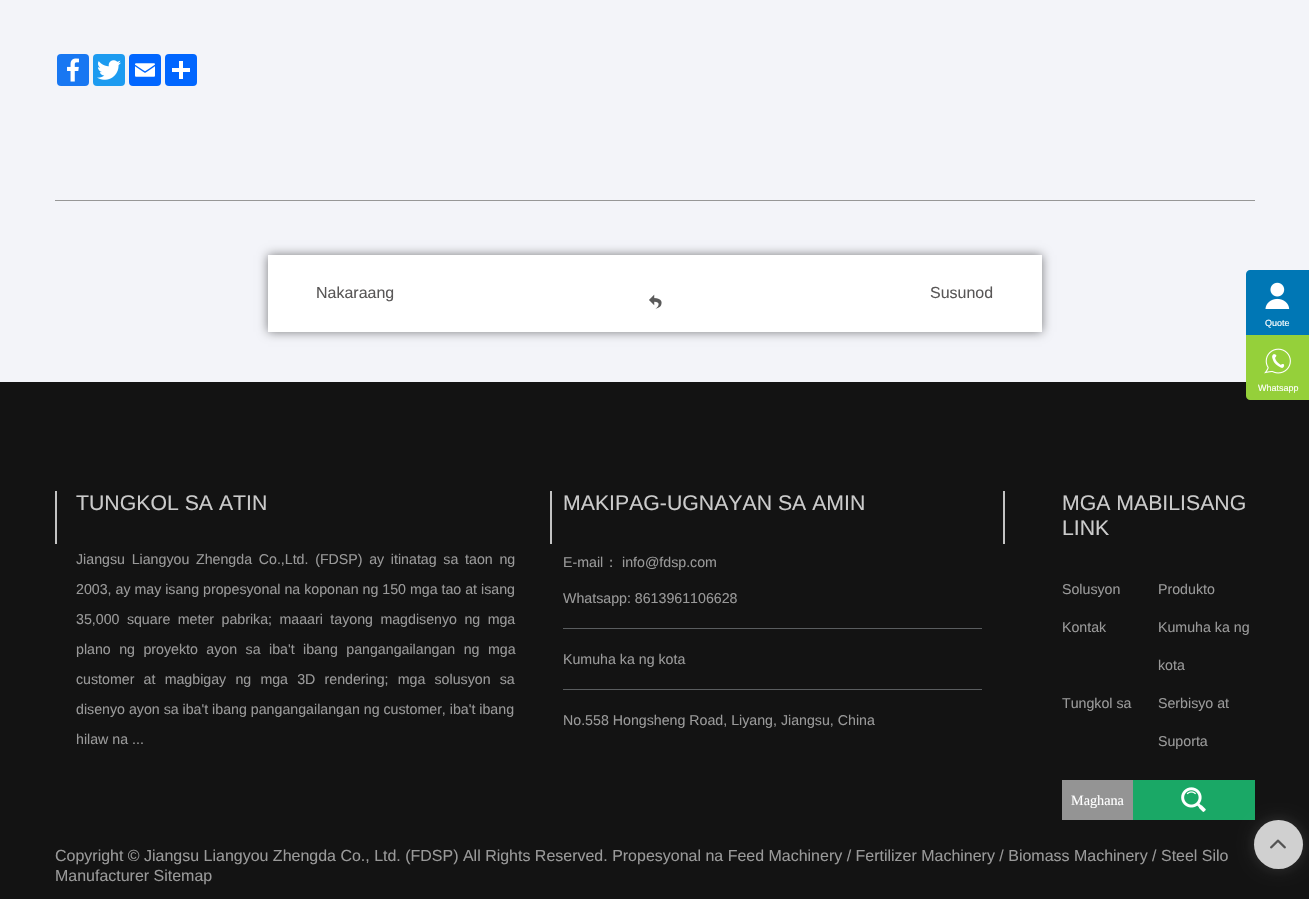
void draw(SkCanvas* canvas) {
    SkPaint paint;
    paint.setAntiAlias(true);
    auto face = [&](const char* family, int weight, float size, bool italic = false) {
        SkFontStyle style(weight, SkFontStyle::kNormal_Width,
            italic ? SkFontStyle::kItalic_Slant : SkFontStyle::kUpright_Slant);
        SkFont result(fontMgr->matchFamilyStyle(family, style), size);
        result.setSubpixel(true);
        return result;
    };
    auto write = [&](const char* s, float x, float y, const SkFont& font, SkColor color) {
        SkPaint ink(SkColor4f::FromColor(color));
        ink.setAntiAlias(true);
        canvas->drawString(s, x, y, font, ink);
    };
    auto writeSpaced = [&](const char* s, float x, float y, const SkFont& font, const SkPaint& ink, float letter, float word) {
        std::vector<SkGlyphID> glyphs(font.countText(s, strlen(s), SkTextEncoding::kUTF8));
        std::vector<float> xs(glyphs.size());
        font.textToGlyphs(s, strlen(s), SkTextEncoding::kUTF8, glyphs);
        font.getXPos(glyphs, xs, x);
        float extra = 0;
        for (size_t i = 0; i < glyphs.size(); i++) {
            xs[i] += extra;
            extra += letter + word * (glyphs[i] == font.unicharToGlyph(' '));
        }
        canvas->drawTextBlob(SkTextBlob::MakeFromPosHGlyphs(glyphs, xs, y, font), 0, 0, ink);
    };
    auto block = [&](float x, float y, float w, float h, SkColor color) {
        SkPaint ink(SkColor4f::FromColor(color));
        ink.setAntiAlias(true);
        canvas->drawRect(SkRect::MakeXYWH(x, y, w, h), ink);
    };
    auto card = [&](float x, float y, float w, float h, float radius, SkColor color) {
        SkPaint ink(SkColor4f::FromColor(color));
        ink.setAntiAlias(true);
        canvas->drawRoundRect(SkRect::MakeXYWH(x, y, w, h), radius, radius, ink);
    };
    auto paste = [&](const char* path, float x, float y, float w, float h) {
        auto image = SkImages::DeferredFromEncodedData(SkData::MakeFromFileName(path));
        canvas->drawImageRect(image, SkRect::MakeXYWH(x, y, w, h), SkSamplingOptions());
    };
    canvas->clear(SkColorSetRGB(243, 244, 249));
    block(55, 200, 1200, 1, SkColorSetRGB(151, 151, 151));
    card(57, 54, 32, 32, 4, SkColorSetRGB(24, 119, 242));
    paste("pic1.png", 67, 58, 12, 24);
    card(93, 54, 32, 32, 4, SkColorSetRGB(29, 155, 240));
    paste("pic2.png", 97, 60, 24, 20);
    card(129, 54, 32, 32, 4, SkColorSetRGB(1, 102, 255));
    paste("pic3.png", 135, 63, 20, 14);
    card(165, 54, 32, 32, 4, SkColorSetRGB(1, 102, 255));
    block(179, 61, 4, 18, SK_ColorWHITE);
    block(172, 68, 18, 4, SK_ColorWHITE);
    paint.setColor(SkColorSetARGB(128, 0, 0, 0));
    paint.setMaskFilter(SkMaskFilter::MakeBlur(kNormal_SkBlurStyle, 5));
    canvas->drawRect(SkRect::MakeXYWH(268, 255, 774, 77), paint);
    paint.setMaskFilter(nullptr);
    block(268, 255, 774, 77, SK_ColorWHITE);
    auto kFont1 = face("Liberation Sans", 400, 15.98f);
    write("Nakaraang", 316, 298, kFont1, SkColorSetRGB(89, 87, 87));
    write("Susunod", 930, 298, kFont1, SkColorSetRGB(89, 87, 87));
    paste("pic4.png", 649, 294, 13, 15);
    paint.setColor(SkColorSetRGB(0, 119, 181));
    canvas->drawPath(SkPathBuilder().moveTo(1250, 270).lineTo(1309, 270).lineTo(1309, 335).lineTo(1246, 335).lineTo(1246, 274).cubicTo(1246, 272, 1248, 270, 1250, 270).close().detach(), paint);
    paste("pic5.png", 1265, 282, 25, 27);
    auto kFont2 = face("Liberation Sans", 400, 9);
    write("Quote", 1265, 326, kFont2, SK_ColorWHITE);
    block(0, 382, 1309, 517, SkColorSetRGB(19, 19, 19));
    paint.setColor(SkColorSetRGB(149, 208, 58));
    canvas->drawPath(SkPathBuilder().moveTo(1246, 335).lineTo(1309, 335).lineTo(1309, 400).lineTo(1250, 400).cubicTo(1248, 400, 1246, 398, 1246, 396).close().detach(), paint);
    paste("pic6.png", 1264, 348, 27, 26);
    write("Whatsapp", 1258, 391, kFont2, SK_ColorWHITE);
    block(55, 491, 2, 53, SkColorSetRGB(195, 195, 195));
    auto kFont3 = face("Liberation Sans", 400, 21.25f);
    write("TUNGKOL SA ATIN", 76, 510, kFont3, SkColorSetRGB(203, 203, 203));
    auto kFont4 = face("Liberation Sans", 400, 14.2f);
    paint.setColor(SkColorSetRGB(153, 153, 153));
    writeSpaced("Jiangsu Liangyou Zhengda Co.,Ltd. (FDSP) ay itinatag sa taon ng", 76, 564, kFont4, paint, 0, 2.75f);
    write("2003, ay may isang propesyonal na koponan ng 150 mga tao at isang", 76, 594, kFont4, SkColorSetRGB(153, 153, 153));
    writeSpaced("35,000 square meter pabrika; maaari tayong magdisenyo ng mga", 76, 624, kFont4, paint, 0, 3.5f);
    writeSpaced("plano ng proyekto ayon sa iba't ibang pangangailangan ng mga", 76, 654, kFont4, paint, 0, 4.5f);
    writeSpaced("customer at magbigay ng mga 3D rendering; mga solusyon sa", 76, 684, kFont4, paint, 0, 5.25f);
    write("disenyo ayon sa iba't ibang pangangailangan ng customer, iba't ibang", 76, 714, kFont4, SkColorSetRGB(153, 153, 153));
    write("hilaw na ...", 76, 744, kFont4, SkColorSetRGB(153, 153, 153));
    block(550, 491, 2, 53, SkColorSetRGB(195, 195, 195));
    write("MAKIPAG-UGNAYAN SA AMIN", 563, 510, kFont3, SkColorSetRGB(203, 203, 203));
    write("E-mail", 563, 567, kFont4, SkColorSetRGB(153, 153, 153));
    auto kFont5 = face("WenQuanYi Zen Hei", 500, 14.2f);
    write("：", 604, 567, kFont5, SkColorSetRGB(153, 153, 153));
    write("info@fdsp.com", 622, 567, kFont4, SkColorSetRGB(153, 153, 153));
    write("Whatsapp: 8613961106628", 563, 603, kFont4, SkColorSetRGB(153, 153, 153));
    block(563, 628, 419, 1, SkColorSetRGB(90, 93, 95));
    write("Kumuha ka ng kota", 563, 664, kFont4, SkColorSetRGB(153, 153, 153));
    block(563, 689, 419, 1, SkColorSetRGB(90, 93, 95));
    write("No.558 Hongsheng Road, Liyang, Jiangsu, China", 563, 725, kFont4, SkColorSetRGB(153, 153, 153));
    block(1003, 491, 2, 53, SkColorSetRGB(195, 195, 195));
    write("MGA MABILISANG", 1062, 510, kFont3, SkColorSetRGB(203, 203, 203));
    write("LINK", 1062, 535, kFont3, SkColorSetRGB(203, 203, 203));
    write("Solusyon", 1062, 594, kFont4, SkColorSetRGB(153, 153, 153));
    write("Produkto", 1158, 594, kFont4, SkColorSetRGB(153, 153, 153));
    write("Kontak", 1062, 632, kFont4, SkColorSetRGB(153, 153, 153));
    write("Kumuha ka ng", 1158, 632, kFont4, SkColorSetRGB(153, 153, 153));
    write("kota", 1158, 670, kFont4, SkColorSetRGB(153, 153, 153));
    write("Tungkol sa", 1062, 708, kFont4, SkColorSetRGB(153, 153, 153));
    write("Serbisyo at", 1158, 708, kFont4, SkColorSetRGB(153, 153, 153));
    write("Suporta", 1158, 746, kFont4, SkColorSetRGB(153, 153, 153));
    block(1062, 780, 71, 40, SkColorSetRGB(148, 148, 148));
    auto kFont6 = face("Liberation Serif", 400, 14.2f);
    write("Maghana", 1071, 805, kFont6, SK_ColorWHITE);
    block(1133, 780, 122, 40, SkColorSetRGB(26, 168, 102));
    paste("pic7.png", 1181, 787, 25, 25);
    write("Copyright © Jiangsu Liangyou Zhengda Co., Ltd. (FDSP) All Rights Reserved. Propesyonal na Feed Machinery / Fertilizer Machinery / Biomass Machinery / Steel Silo", 55, 861, kFont1, SkColorSetRGB(153, 153, 153));
    write("Manufacturer Sitemap", 55, 881, kFont1, SkColorSetRGB(153, 153, 153));
    paint.setColor(SkColorSetARGB(82, 122, 122, 122));
    paint.setMaskFilter(SkMaskFilter::MakeBlur(kNormal_SkBlurStyle, 7.5f));
    canvas->drawRoundRect(SkRect::MakeXYWH(1254, 820, 49, 49), 24.5f, 24.5f, paint);
    paint.setMaskFilter(nullptr);
    paint.setColor(SkColorSetRGB(208, 208, 208));
    canvas->drawCircle(1278.5f, 844.5f, 24.5f, paint);
    paste("pic8.png", 1270, 839, 16, 10);
}
